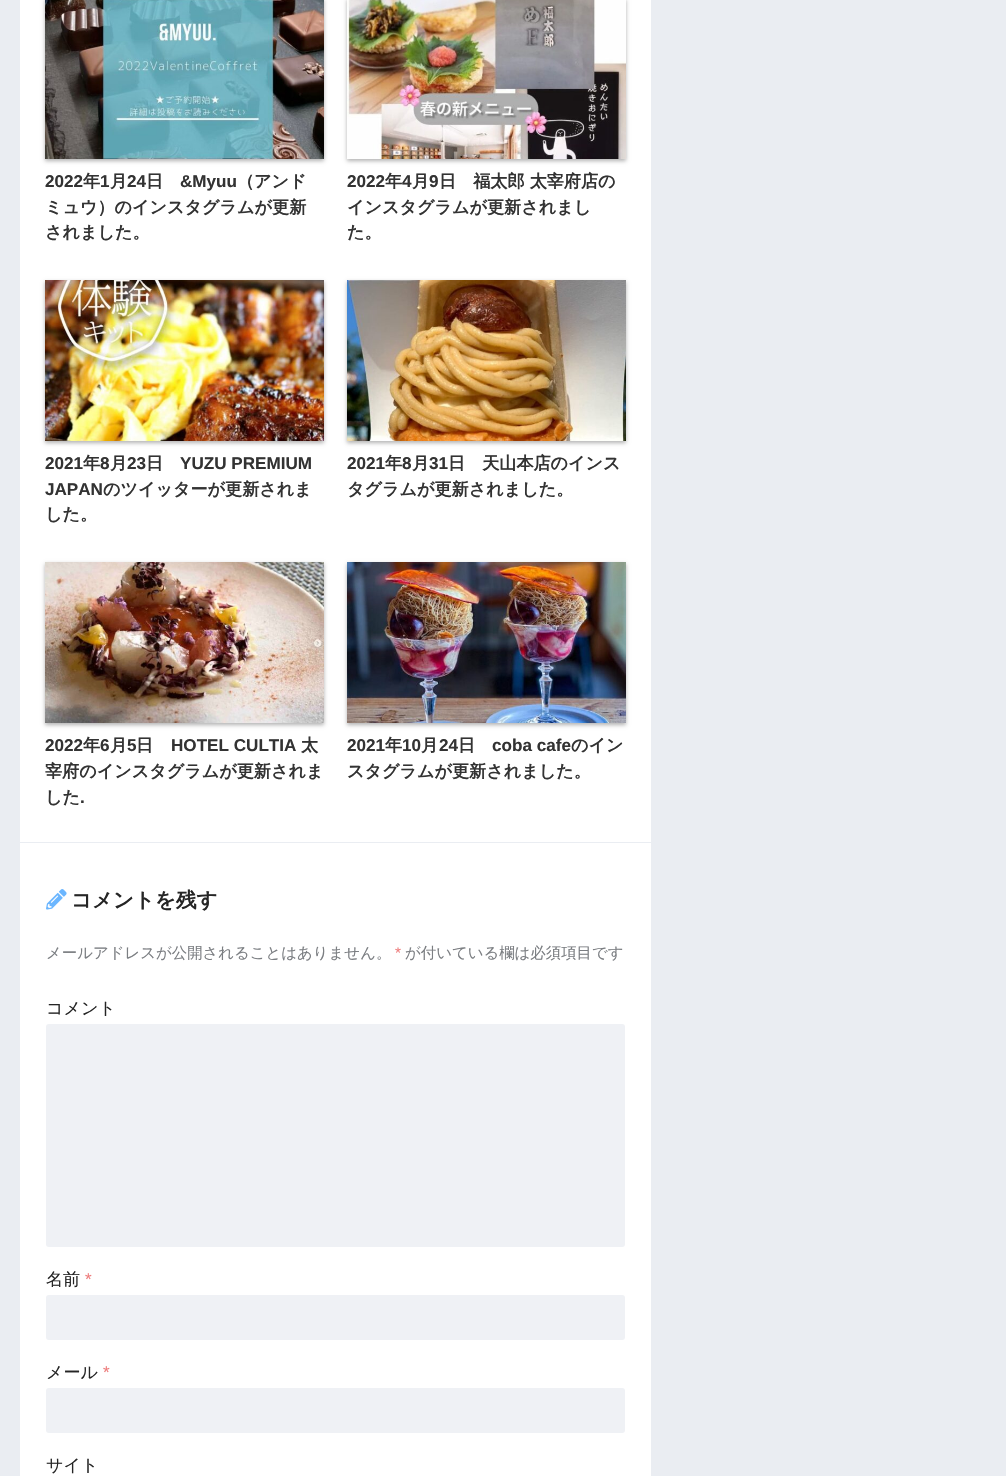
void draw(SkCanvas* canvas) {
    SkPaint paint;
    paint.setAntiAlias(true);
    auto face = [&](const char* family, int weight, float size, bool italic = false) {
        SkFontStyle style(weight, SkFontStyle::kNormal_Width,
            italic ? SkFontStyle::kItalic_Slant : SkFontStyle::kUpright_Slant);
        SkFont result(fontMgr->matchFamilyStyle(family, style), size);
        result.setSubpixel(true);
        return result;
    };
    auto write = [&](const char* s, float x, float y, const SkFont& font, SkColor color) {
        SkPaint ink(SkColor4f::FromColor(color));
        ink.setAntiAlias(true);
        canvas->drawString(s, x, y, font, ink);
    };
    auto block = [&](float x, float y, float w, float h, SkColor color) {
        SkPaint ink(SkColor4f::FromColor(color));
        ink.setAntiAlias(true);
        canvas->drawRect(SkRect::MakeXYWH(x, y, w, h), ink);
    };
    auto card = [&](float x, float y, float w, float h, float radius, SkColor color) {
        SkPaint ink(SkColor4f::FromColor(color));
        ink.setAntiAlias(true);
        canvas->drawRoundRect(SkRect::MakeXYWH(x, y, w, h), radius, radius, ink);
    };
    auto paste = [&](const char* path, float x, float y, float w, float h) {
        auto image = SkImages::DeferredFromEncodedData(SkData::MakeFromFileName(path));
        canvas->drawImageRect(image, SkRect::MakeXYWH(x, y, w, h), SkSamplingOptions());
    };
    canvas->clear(SkColorSetRGB(234, 237, 242));
    block(20, 0, 631, 1476, SK_ColorWHITE);
    paint.setColor(SkColorSetARGB(77, 0, 0, 0));
    paint.setMaskFilter(SkMaskFilter::MakeBlur(kNormal_SkBlurStyle, 2));
    canvas->drawRect(SkRect::MakeXYWH(45, 0, 279, 161), paint);
    paint.setMaskFilter(nullptr);
    paste("pic1.png", 45, 0, 279, 159);
    auto kFont1 = face("Liberation Sans", 700, 17.1f);
    write("2022", 45, 187, kFont1, SkColorSetRGB(51, 51, 51));
    auto kFont2 = face("WenQuanYi Zen Hei", 700, 17.1f);
    write("年", 83, 187, kFont2, SkColorSetRGB(51, 51, 51));
    write("1", 100, 187, kFont1, SkColorSetRGB(51, 51, 51));
    write("月", 110, 187, kFont2, SkColorSetRGB(51, 51, 51));
    write("24", 127, 187, kFont1, SkColorSetRGB(51, 51, 51));
    write("日", 146, 187, kFont2, SkColorSetRGB(51, 51, 51));
    write("&Myuu", 180, 187, kFont1, SkColorSetRGB(51, 51, 51));
    write("（アンド", 237, 187, kFont2, SkColorSetRGB(51, 51, 51));
    write("ミュウ）のインスタグラムが更新", 45, 213, kFont2, SkColorSetRGB(51, 51, 51));
    write("されました。", 45, 238, kFont2, SkColorSetRGB(51, 51, 51));
    paint.setMaskFilter(SkMaskFilter::MakeBlur(kNormal_SkBlurStyle, 2));
    canvas->drawRect(SkRect::MakeXYWH(347, 0, 279, 161), paint);
    paint.setMaskFilter(nullptr);
    paste("pic2.png", 347, 0, 279, 159);
    write("2022", 347, 187, kFont1, SkColorSetRGB(51, 51, 51));
    write("年", 385, 187, kFont2, SkColorSetRGB(51, 51, 51));
    write("4", 402, 187, kFont1, SkColorSetRGB(51, 51, 51));
    write("月", 412, 187, kFont2, SkColorSetRGB(51, 51, 51));
    write("9", 429, 187, kFont1, SkColorSetRGB(51, 51, 51));
    write("日　福太郎 太宰府店の", 439, 187, kFont2, SkColorSetRGB(51, 51, 51));
    write("インスタグラムが更新されまし", 347, 213, kFont2, SkColorSetRGB(51, 51, 51));
    write("た。", 347, 238, kFont2, SkColorSetRGB(51, 51, 51));
    paint.setMaskFilter(SkMaskFilter::MakeBlur(kNormal_SkBlurStyle, 2));
    canvas->drawRect(SkRect::MakeXYWH(45, 282, 279, 161), paint);
    paint.setMaskFilter(nullptr);
    paste("pic3.png", 45, 280, 279, 161);
    write("2021", 45, 469, kFont1, SkColorSetRGB(51, 51, 51));
    write("年", 83, 469, kFont2, SkColorSetRGB(51, 51, 51));
    write("8", 100, 469, kFont1, SkColorSetRGB(51, 51, 51));
    write("月", 110, 469, kFont2, SkColorSetRGB(51, 51, 51));
    write("23", 127, 469, kFont1, SkColorSetRGB(51, 51, 51));
    write("日", 146, 469, kFont2, SkColorSetRGB(51, 51, 51));
    write("YUZU PREMIUM", 180, 469, kFont1, SkColorSetRGB(51, 51, 51));
    write("JAPAN", 45, 495, kFont1, SkColorSetRGB(51, 51, 51));
    write("のツイッターが更新されま", 103, 495, kFont2, SkColorSetRGB(51, 51, 51));
    write("した。", 45, 520, kFont2, SkColorSetRGB(51, 51, 51));
    paint.setMaskFilter(SkMaskFilter::MakeBlur(kNormal_SkBlurStyle, 2));
    canvas->drawRect(SkRect::MakeXYWH(347, 282, 279, 161), paint);
    paint.setMaskFilter(nullptr);
    paste("pic4.png", 347, 280, 279, 161);
    write("2021", 347, 469, kFont1, SkColorSetRGB(51, 51, 51));
    write("年", 385, 469, kFont2, SkColorSetRGB(51, 51, 51));
    write("8", 402, 469, kFont1, SkColorSetRGB(51, 51, 51));
    write("月", 412, 469, kFont2, SkColorSetRGB(51, 51, 51));
    write("31", 429, 469, kFont1, SkColorSetRGB(51, 51, 51));
    write("日　天山本店のインス", 448, 469, kFont2, SkColorSetRGB(51, 51, 51));
    write("タグラムが更新されました。", 347, 495, kFont2, SkColorSetRGB(51, 51, 51));
    paint.setMaskFilter(SkMaskFilter::MakeBlur(kNormal_SkBlurStyle, 2));
    canvas->drawRect(SkRect::MakeXYWH(45, 564, 279, 161), paint);
    paint.setMaskFilter(nullptr);
    paste("pic5.png", 45, 562, 279, 161);
    write("2022", 45, 751, kFont1, SkColorSetRGB(51, 51, 51));
    write("年", 83, 751, kFont2, SkColorSetRGB(51, 51, 51));
    write("6", 100, 751, kFont1, SkColorSetRGB(51, 51, 51));
    write("月", 110, 751, kFont2, SkColorSetRGB(51, 51, 51));
    write("5", 127, 751, kFont1, SkColorSetRGB(51, 51, 51));
    write("日", 136, 751, kFont2, SkColorSetRGB(51, 51, 51));
    write("HOTEL CULTIA", 171, 751, kFont1, SkColorSetRGB(51, 51, 51));
    write("太", 301, 751, kFont2, SkColorSetRGB(51, 51, 51));
    write("宰府のインスタグラムが更新されま", 45, 777, kFont2, SkColorSetRGB(51, 51, 51));
    write("した", 45, 803, kFont2, SkColorSetRGB(51, 51, 51));
    write(".", 80, 803, kFont1, SkColorSetRGB(51, 51, 51));
    paint.setMaskFilter(SkMaskFilter::MakeBlur(kNormal_SkBlurStyle, 2));
    canvas->drawRect(SkRect::MakeXYWH(347, 564, 279, 161), paint);
    paint.setMaskFilter(nullptr);
    paste("pic6.png", 347, 562, 279, 161);
    write("2021", 347, 751, kFont1, SkColorSetRGB(51, 51, 51));
    write("年", 385, 751, kFont2, SkColorSetRGB(51, 51, 51));
    write("10", 402, 751, kFont1, SkColorSetRGB(51, 51, 51));
    write("月", 421, 751, kFont2, SkColorSetRGB(51, 51, 51));
    write("24", 439, 751, kFont1, SkColorSetRGB(51, 51, 51));
    write("日", 458, 751, kFont2, SkColorSetRGB(51, 51, 51));
    write("coba cafe", 492, 751, kFont1, SkColorSetRGB(51, 51, 51));
    write("のイン", 571, 751, kFont2, SkColorSetRGB(51, 51, 51));
    write("スタグラムが更新されました。", 347, 777, kFont2, SkColorSetRGB(51, 51, 51));
    block(20, 842, 631, 1, SkColorSetRGB(234, 237, 242));
    paste("pic7.png", 46, 889, 21, 21);
    auto kFont3 = face("WenQuanYi Zen Hei", 700, 20.5f);
    write("コメントを残す", 71, 907, kFont3, SkColorSetRGB(37, 37, 37));
    auto kFont4 = face("WenQuanYi Zen Hei", 500, 15.4f);
    write("メールアドレスが公開されることはありません。", 46, 958, kFont4, SkColorSetRGB(123, 126, 130));
    auto kFont5 = face("Liberation Sans", 400, 15.4f);
    write("*", 395, 958, kFont5, SkColorSetRGB(238, 123, 123));
    write("が付いている欄は必須項目です", 405, 958, kFont4, SkColorSetRGB(123, 126, 130));
    auto kFont6 = face("WenQuanYi Zen Hei", 500, 17.1f);
    write("コメント", 46, 1014, kFont6, SkColorSetRGB(37, 37, 37));
    card(46, 1024, 579, 223, 3, SkColorSetRGB(239, 241, 245));
    write("名前", 46, 1285, kFont6, SkColorSetRGB(37, 37, 37));
    auto kFont7 = face("Liberation Sans", 400, 17.1f);
    write("*", 85, 1285, kFont7, SkColorSetRGB(238, 123, 123));
    card(46, 1295, 579, 45, 3, SkColorSetRGB(239, 241, 245));
    write("メール", 46, 1378, kFont6, SkColorSetRGB(37, 37, 37));
    write("*", 103, 1378, kFont7, SkColorSetRGB(238, 123, 123));
    card(46, 1388, 579, 45, 3, SkColorSetRGB(239, 241, 245));
    write("サイト", 46, 1471, kFont6, SkColorSetRGB(37, 37, 37));
}
